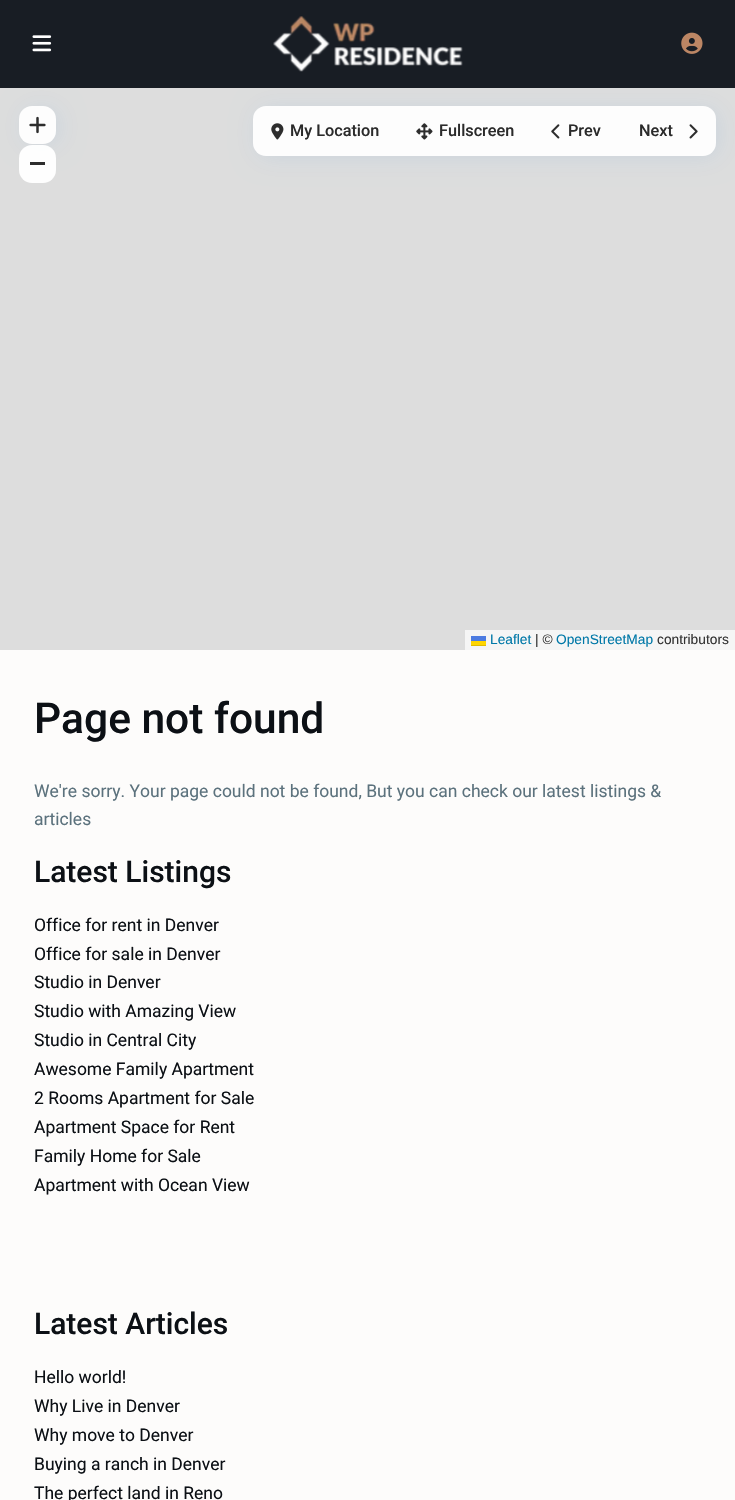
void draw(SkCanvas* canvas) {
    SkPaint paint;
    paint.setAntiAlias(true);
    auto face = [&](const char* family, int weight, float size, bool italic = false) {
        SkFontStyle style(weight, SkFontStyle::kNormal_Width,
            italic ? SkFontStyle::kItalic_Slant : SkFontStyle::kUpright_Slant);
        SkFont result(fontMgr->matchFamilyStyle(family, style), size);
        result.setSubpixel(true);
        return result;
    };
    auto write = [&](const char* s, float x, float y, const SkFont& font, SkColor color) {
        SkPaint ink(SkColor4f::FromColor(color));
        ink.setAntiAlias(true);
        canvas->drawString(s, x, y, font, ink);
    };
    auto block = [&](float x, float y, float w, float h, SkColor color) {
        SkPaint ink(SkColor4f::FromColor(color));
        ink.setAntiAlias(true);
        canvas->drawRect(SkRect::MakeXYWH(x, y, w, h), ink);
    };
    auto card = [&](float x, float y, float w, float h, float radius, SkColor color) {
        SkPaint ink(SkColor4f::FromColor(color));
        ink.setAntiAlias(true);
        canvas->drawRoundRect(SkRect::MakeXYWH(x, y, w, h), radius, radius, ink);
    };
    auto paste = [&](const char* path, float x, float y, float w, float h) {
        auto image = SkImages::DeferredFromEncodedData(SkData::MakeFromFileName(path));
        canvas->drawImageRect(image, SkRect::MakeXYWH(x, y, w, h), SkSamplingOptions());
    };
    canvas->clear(SkColorSetRGB(253, 252, 251));
    block(0, 88, 735, 562, SkColorSetRGB(221, 221, 221));
    paint.setColor(SkColorSetARGB(20, 0, 110, 225));
    paint.setMaskFilter(SkMaskFilter::MakeBlur(kNormal_SkBlurStyle, 12.5f));
    canvas->drawRoundRect(SkRect::MakeXYWH(23, 108, 37, 37), 13, 13, paint);
    paint.setMaskFilter(nullptr);
    paint.setMaskFilter(SkMaskFilter::MakeBlur(kNormal_SkBlurStyle, 12.5f));
    canvas->drawRoundRect(SkRect::MakeXYWH(256, 108, 464, 50), 13, 13, paint);
    paint.setMaskFilter(nullptr);
    block(0, 0, 735, 88, SkColorSetRGB(24, 29, 36));
    paste("pic1.png", 32, 35, 20, 17);
    paste("pic2.png", 273, 16, 190, 56);
    paste("pic3.png", 681, 32, 22, 22);
    card(19, 106, 37, 38, 13, SkColorSetRGB(253, 253, 253));
    paste("pic4.png", 29, 116, 17, 18);
    card(253, 106, 463, 50, 13, SkColorSetRGB(253, 253, 253));
    paste("pic5.png", 271, 123, 13, 17);
    auto kFont1 = face("Roboto", 500, 16.25f);
    write("My Location", 290, 136, kFont1, SkColorSetRGB(43, 43, 43));
    paste("pic6.png", 416, 123, 17, 17);
    write("Fullscreen", 439, 136, kFont1, SkColorSetRGB(43, 43, 43));
    paste("pic7.png", 551, 124, 9, 15);
    write("Prev", 568, 136, kFont1, SkColorSetRGB(43, 43, 43));
    write("Next", 639, 136, kFont1, SkColorSetRGB(43, 43, 43));
    paste("pic8.png", 689, 124, 9, 15);
    card(19, 145, 37, 38, 13, SkColorSetARGB(242, 255, 255, 255));
    block(30, 162, 15, 3, SkColorSetRGB(45, 45, 45));
    block(465, 630, 270, 20, SkColorSetRGB(245, 245, 245));
    auto kFont2 = face("Liberation Sans", 400, 13.75f);
    write("Leaflet", 490, 644, kFont2, SkColorSetRGB(0, 120, 168));
    block(471, 636, 15, 5, SkColorSetRGB(76, 123, 225));
    block(471, 641, 15, 4, SkColorSetRGB(255, 213, 0));
    block(471, 645, 15, 1, SkColorSetRGB(224, 188, 0));
    write("| ©", 535, 644, kFont2, SkColorSetRGB(51, 51, 51));
    write("OpenStreetMap", 556, 644, kFont2, SkColorSetRGB(0, 120, 168));
    write("contributors", 657, 644, kFont2, SkColorSetRGB(51, 51, 51));
    auto kFont3 = face("Roboto", 500, 42.5f);
    write("Page not found", 34, 733, kFont3, SkColorSetRGB(12, 16, 21));
    auto kFont4 = face("Roboto", 400, 17.5f);
    write("We're sorry. Your page could not be found, But you can check our latest listings &", 34, 797, kFont4, SkColorSetRGB(92, 114, 125));
    write("articles", 34, 825, kFont4, SkColorSetRGB(92, 114, 125));
    auto kFont5 = face("Roboto", 500, 30);
    write("Latest Listings", 34, 882, kFont5, SkColorSetRGB(12, 16, 21));
    write("Office for rent in Denver", 34, 931, kFont4, SkColorSetRGB(12, 16, 21));
    write("Office for sale in Denver", 34, 960, kFont4, SkColorSetRGB(12, 16, 21));
    write("Studio in Denver", 34, 988, kFont4, SkColorSetRGB(12, 16, 21));
    write("Studio with Amazing View", 34, 1017, kFont4, SkColorSetRGB(12, 16, 21));
    write("Studio in Central City", 34, 1046, kFont4, SkColorSetRGB(12, 16, 21));
    write("Awesome Family Apartment", 34, 1075, kFont4, SkColorSetRGB(12, 16, 21));
    write("2 Rooms Apartment for Sale", 34, 1104, kFont4, SkColorSetRGB(12, 16, 21));
    write("Apartment Space for Rent", 34, 1133, kFont4, SkColorSetRGB(12, 16, 21));
    write("Family Home for Sale", 34, 1162, kFont4, SkColorSetRGB(12, 16, 21));
    write("Apartment with Ocean View", 34, 1191, kFont4, SkColorSetRGB(12, 16, 21));
    write("Latest Articles", 34, 1334, kFont5, SkColorSetRGB(12, 16, 21));
    write("Hello world!", 34, 1383, kFont4, SkColorSetRGB(12, 16, 21));
    write("Why Live in Denver", 34, 1412, kFont4, SkColorSetRGB(12, 16, 21));
    write("Why move to Denver", 34, 1441, kFont4, SkColorSetRGB(12, 16, 21));
    write("Buying a ranch in Denver", 34, 1470, kFont4, SkColorSetRGB(12, 16, 21));
    write("The perfect land in Reno", 34, 1499, kFont4, SkColorSetRGB(12, 16, 21));
}
